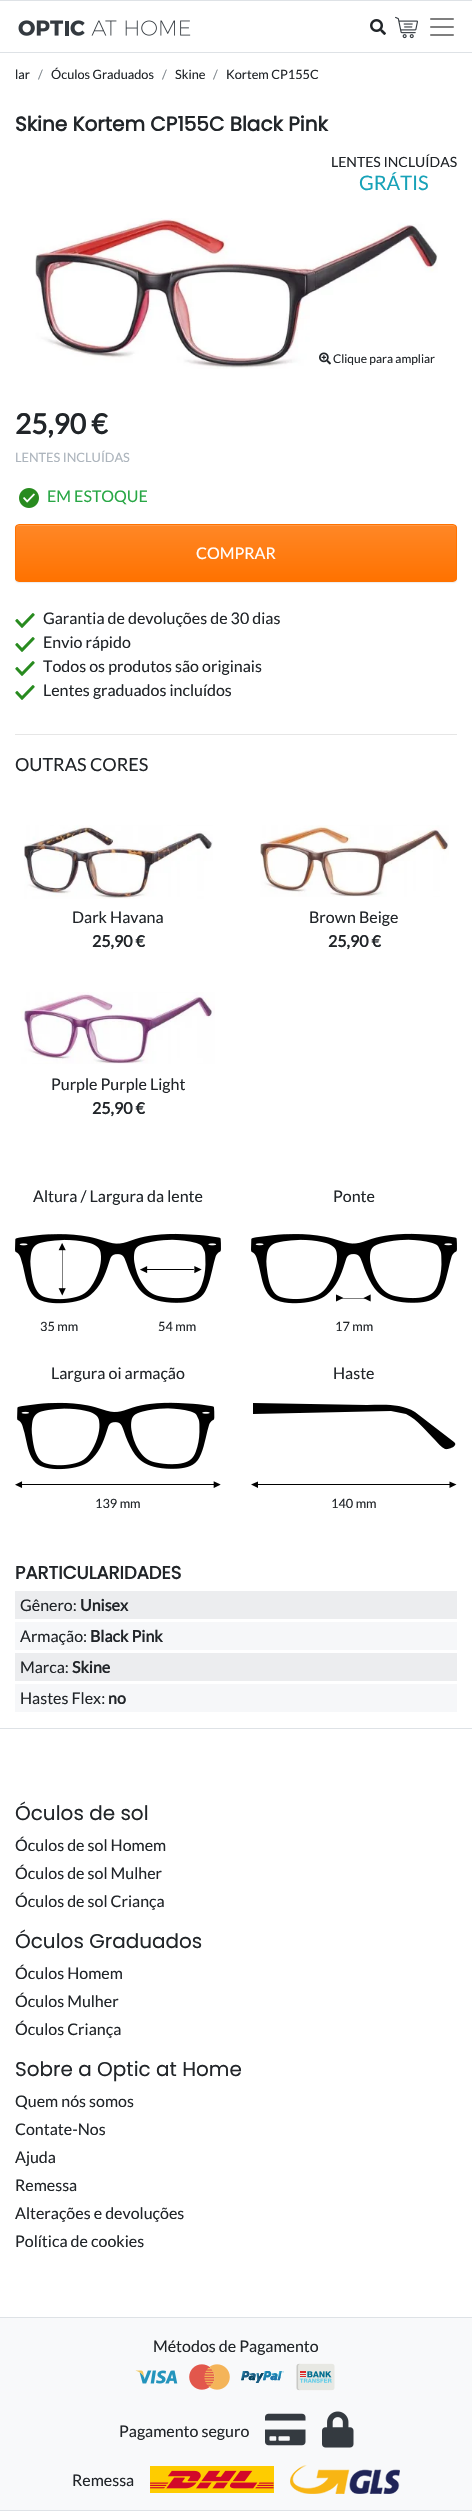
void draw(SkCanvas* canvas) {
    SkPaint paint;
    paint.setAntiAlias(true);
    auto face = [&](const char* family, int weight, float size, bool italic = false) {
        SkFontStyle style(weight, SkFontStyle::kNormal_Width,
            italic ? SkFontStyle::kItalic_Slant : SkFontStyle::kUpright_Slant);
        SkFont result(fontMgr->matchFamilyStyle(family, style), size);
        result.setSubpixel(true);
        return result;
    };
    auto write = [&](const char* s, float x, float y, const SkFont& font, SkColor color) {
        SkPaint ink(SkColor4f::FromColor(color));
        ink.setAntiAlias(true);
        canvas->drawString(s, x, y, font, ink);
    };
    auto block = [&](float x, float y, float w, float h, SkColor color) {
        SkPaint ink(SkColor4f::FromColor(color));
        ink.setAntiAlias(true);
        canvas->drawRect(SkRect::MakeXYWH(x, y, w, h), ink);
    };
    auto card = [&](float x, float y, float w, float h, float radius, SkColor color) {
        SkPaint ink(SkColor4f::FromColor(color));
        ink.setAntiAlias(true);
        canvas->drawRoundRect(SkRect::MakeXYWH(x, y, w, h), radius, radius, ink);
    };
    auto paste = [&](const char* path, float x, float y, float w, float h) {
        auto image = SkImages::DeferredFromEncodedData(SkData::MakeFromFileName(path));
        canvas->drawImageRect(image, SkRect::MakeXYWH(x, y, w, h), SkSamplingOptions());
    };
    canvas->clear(SK_ColorWHITE);
    block(0, 0, 472, 1, SkColorSetRGB(222, 226, 230));
    block(0, 52, 472, 1, SkColorSetRGB(222, 226, 230));
    paste("pic1.png", 18, 20, 173, 16);
    paste("pic2.png", 370, 19, 16, 16);
    paste("pic3.png", 395, 16, 23, 23);
    paste("pic4.png", 430, 18, 24, 18);
    auto kFont1 = face("Lato", 400, 12.75f);
    write("lar", 15, 79, kFont1, SkColorSetRGB(33, 37, 41));
    write("/", 38, 79, kFont1, SkColorSetRGB(128, 136, 142));
    write("Óculos Graduados", 51, 79, kFont1, SkColorSetRGB(33, 37, 41));
    write("/", 162, 79, kFont1, SkColorSetRGB(128, 136, 142));
    write("Skine", 175, 79, kFont1, SkColorSetRGB(33, 37, 41));
    write("/", 213, 79, kFont1, SkColorSetRGB(128, 136, 142));
    write("Kortem CP155C", 226, 79, kFont1, SkColorSetRGB(33, 37, 41));
    auto kFont2 = face("Poppins", 700, 20);
    write("Skine Kortem CP155C Black Pink", 15, 131, kFont2, SkColorSetRGB(33, 37, 41));
    auto kFont3 = face("Lato", 400, 14);
    write("LENTES INCLUÍDAS", 331, 167, kFont3, SkColorSetRGB(33, 37, 41));
    auto kFont4 = face("Lato", 400, 20);
    write("GRÁTIS", 359, 190, kFont4, SkColorSetRGB(23, 162, 184));
    paste("pic5.png", 35, 218, 403, 151);
    paste("pic6.png", 319, 352, 12, 13);
    auto kFont5 = face("Lato", 400, 12);
    write("Clique para ampliar", 333, 363, kFont5, SkColorSetRGB(33, 37, 41));
    auto kFont6 = face("Lato", 700, 28);
    write("25,90 €", 15, 434, kFont6, SkColorSetRGB(33, 37, 41));
    write("LENTES INCLUÍDAS", 15, 462, kFont1, SkColorSetRGB(173, 181, 189));
    paste("pic7.png", 19, 488, 20, 20);
    auto kFont7 = face("Lato", 400, 16);
    write("EM ESTOQUE", 47, 502, kFont7, SkColorSetRGB(40, 167, 69));
    paint.setColor(SkColorSetARGB(18, 0, 0, 0));
    paint.setMaskFilter(SkMaskFilter::MakeBlur(kNormal_SkBlurStyle, 0.5f));
    canvas->drawRoundRect(SkRect::MakeXYWH(15, 525, 442, 58), 4, 4, paint);
    paint.setMaskFilter(nullptr);
    canvas->save();
    canvas->clipPath(SkPathBuilder().moveTo(19, 524).lineTo(453, 524).cubicTo(455, 524, 457, 526, 457, 528).lineTo(457, 578).cubicTo(457, 580, 455, 582, 453, 582).lineTo(19, 582).cubicTo(17, 582, 15, 580, 15, 578).lineTo(15, 528).cubicTo(15, 526, 17, 524, 19, 524).close().detach(), true);
    {
        const SkColor colors[] = {SkColorSetRGB(255, 135, 38), SkColorSetRGB(255, 114, 0)};
        const float stops[] = {0, 1};
        const SkPoint ends[] = {{236, 525}, {236, 581}};
        paint.setShader(SkGradientShader::MakeLinear(ends, colors, stops, 2, SkTileMode::kClamp));
        paint.setAlpha(255);
    }
    canvas->drawRect(SkRect::MakeXYWH(15, 525, 442, 56), paint);
    canvas->restore();
    paint.setShader(nullptr);
    paint.setColor(SkColorSetRGB(255, 153, 71));
    canvas->drawPath(SkPathBuilder().moveTo(19, 526).lineTo(453, 526).cubicTo(455, 526, 456, 527, 456, 529).cubicTo(456, 527, 455, 525, 453, 525).lineTo(18, 525).lineTo(16, 527).lineTo(16, 529).cubicTo(16, 527, 17, 526, 19, 526).close().detach(), paint);
    paint.setStyle(SkPaint::kStroke_Style);
    paint.setStrokeWidth(1);
    paint.setColor(SkColorSetRGB(255, 114, 0));
    canvas->drawRoundRect(SkRect::MakeXYWH(15.5f, 524.5f, 441, 57), 3.5f, 3.5f, paint);
    write("COMPRAR", 196, 559, kFont7, SK_ColorWHITE);
    paste("pic8.png", 15, 613, 20, 15);
    write("Garantia de devoluções de 30 dias", 43, 624, kFont7, SkColorSetRGB(33, 37, 41));
    paste("pic8.png", 15, 637, 20, 15);
    write("Envio rápido", 43, 648, kFont7, SkColorSetRGB(33, 37, 41));
    paste("pic8.png", 15, 661, 20, 15);
    write("Todos os produtos são originais", 43, 672, kFont7, SkColorSetRGB(33, 37, 41));
    paste("pic8.png", 15, 685, 20, 15);
    write("Lentes graduados incluídos", 43, 696, kFont7, SkColorSetRGB(33, 37, 41));
    block(15, 734, 442, 1, SkColorSetRGB(230, 230, 230));
    auto kFont8 = face("Lato", 400, 18);
    write("OUTRAS CORES", 15, 771, kFont8, SkColorSetRGB(33, 37, 41));
    paste("pic9.png", 24, 825, 189, 74);
    write("Dark Havana", 72, 923, kFont7, SkColorSetRGB(33, 37, 41));
    auto kFont9 = face("Lato", 700, 16);
    write("25,90 €", 92, 947, kFont9, SkColorSetRGB(33, 37, 41));
    paste("pic10.png", 260, 825, 189, 72);
    write("Brown Beige", 309, 923, kFont7, SkColorSetRGB(33, 37, 41));
    write("25,90 €", 328, 947, kFont9, SkColorSetRGB(33, 37, 41));
    paste("pic11.png", 20, 992, 195, 72);
    write("Purple Purple Light", 51, 1090, kFont7, SkColorSetRGB(33, 37, 41));
    write("25,90 €", 92, 1114, kFont9, SkColorSetRGB(33, 37, 41));
    write("Altura / Largura da lente", 33, 1202, kFont7, SkColorSetRGB(33, 37, 41));
    paste("pic12.png", 15, 1233, 206, 71);
    write("35 mm", 40, 1331, kFont1, SkColorSetRGB(33, 37, 41));
    write("54 mm", 158, 1331, kFont1, SkColorSetRGB(33, 37, 41));
    write("Ponte", 333, 1202, kFont7, SkColorSetRGB(33, 37, 41));
    paste("pic13.png", 251, 1233, 206, 71);
    write("17 mm", 335, 1331, kFont1, SkColorSetRGB(33, 37, 41));
    write("Largura oi armação", 51, 1379, kFont7, SkColorSetRGB(33, 37, 41));
    paste("pic14.png", 15, 1402, 206, 86);
    write("139 mm", 95, 1508, kFont1, SkColorSetRGB(33, 37, 41));
    write("Haste", 333, 1379, kFont7, SkColorSetRGB(33, 37, 41));
    paint.setStyle(SkPaint::kFill_Style);
    paint.setColor(SK_ColorBLACK);
    canvas->drawPath(SkPathBuilder().moveTo(454, 1442).lineTo(415, 1412).cubicTo(400, 1403, 383, 1405, 367, 1405).lineTo(253, 1403).lineTo(253, 1414).lineTo(391, 1411).cubicTo(396, 1412, 401, 1413, 406, 1414).cubicTo(418, 1420, 426, 1431, 435, 1440).cubicTo(438, 1443, 441, 1447, 445, 1449).cubicTo(448, 1450, 459, 1446, 454, 1442).close().detach(), paint);
    canvas->drawPath(SkPathBuilder().moveTo(258, 1481.5f).lineTo(258, 1488).lineTo(251, 1484.5f).close().detach(), paint);
    canvas->drawPath(SkPathBuilder().moveTo(449.5f, 1488).lineTo(449.5f, 1481.5f).lineTo(456.5f, 1484.5f).close().detach(), paint);
    card(257, 1484, 196, 1, 0.5f, SK_ColorBLACK);
    write("140 mm", 331, 1508, kFont1, SkColorSetRGB(33, 37, 41));
    auto kFont10 = face("Poppins", 700, 18);
    write("PARTICULARIDADES", 15, 1579, kFont10, SkColorSetRGB(33, 37, 41));
    block(15, 1591, 442, 28, SkColorSetRGB(236, 237, 239));
    write("Gênero:", 20, 1611, kFont7, SkColorSetRGB(33, 37, 41));
    write("Unisex", 80, 1611, kFont9, SkColorSetRGB(33, 37, 41));
    block(15, 1622, 442, 28, SkColorSetRGB(246, 247, 249));
    write("Armação:", 20, 1642, kFont7, SkColorSetRGB(33, 37, 41));
    write("Black Pink", 90, 1642, kFont9, SkColorSetRGB(33, 37, 41));
    block(15, 1653, 442, 28, SkColorSetRGB(236, 237, 239));
    write("Marca:", 20, 1673, kFont7, SkColorSetRGB(33, 37, 41));
    write("Skine", 72, 1673, kFont9, SkColorSetRGB(33, 37, 41));
    block(15, 1684, 442, 28, SkColorSetRGB(246, 247, 249));
    write("Hastes Flex:", 20, 1704, kFont7, SkColorSetRGB(33, 37, 41));
    write("no", 108, 1704, kFont9, SkColorSetRGB(33, 37, 41));
    block(0, 1728, 472, 1, SkColorSetRGB(222, 226, 230));
    auto kFont11 = face("Poppins", 400, 20);
    write("Óculos de sol", 15, 1820, kFont11, SkColorSetRGB(33, 37, 41));
    write("Óculos de sol Homem", 15, 1851, kFont7, SkColorSetRGB(33, 37, 41));
    write("Óculos de sol Mulher", 15, 1879, kFont7, SkColorSetRGB(33, 37, 41));
    write("Óculos de sol Criança", 15, 1907, kFont7, SkColorSetRGB(33, 37, 41));
    write("Óculos Graduados", 15, 1948, kFont11, SkColorSetRGB(33, 37, 41));
    write("Óculos Homem", 15, 1979, kFont7, SkColorSetRGB(33, 37, 41));
    write("Óculos Mulher", 15, 2007, kFont7, SkColorSetRGB(33, 37, 41));
    write("Óculos Criança", 15, 2035, kFont7, SkColorSetRGB(33, 37, 41));
    write("Sobre a Optic at Home", 15, 2076, kFont11, SkColorSetRGB(33, 37, 41));
    write("Quem nós somos", 15, 2107, kFont7, SkColorSetRGB(33, 37, 41));
    write("Contate-Nos", 15, 2135, kFont7, SkColorSetRGB(33, 37, 41));
    write("Ajuda", 15, 2163, kFont7, SkColorSetRGB(33, 37, 41));
    write("Remessa", 15, 2191, kFont7, SkColorSetRGB(33, 37, 41));
    write("Alterações e devoluções", 15, 2219, kFont7, SkColorSetRGB(33, 37, 41));
    write("Política de cookies", 15, 2247, kFont7, SkColorSetRGB(33, 37, 41));
    block(0, 2318, 472, 192, SkColorSetRGB(248, 249, 250));
    block(0, 2317, 472, 1, SkColorSetRGB(222, 226, 230));
    block(0, 2510, 472, 1, SkColorSetRGB(222, 226, 230));
    write("Métodos de Pagamento", 153, 2352, kFont7, SkColorSetRGB(33, 37, 41));
    paste("pic15.png", 135, 2370, 43, 14);
    paste("pic16.png", 189, 2364, 41, 26);
    paste("pic17.png", 241, 2371, 43, 12);
    paste("pic18.png", 296, 2363, 39, 28);
    write("Pagamento seguro", 119, 2437, kFont7, SkColorSetRGB(33, 37, 41));
    paste("pic19.png", 265, 2413, 41, 33);
    paste("pic20.png", 322, 2411, 32, 37);
    write("Remessa", 72, 2486, kFont7, SkColorSetRGB(33, 37, 41));
    paste("pic21.png", 150, 2466, 124, 27);
    paste("pic22.png", 290, 2465, 110, 29);
}
